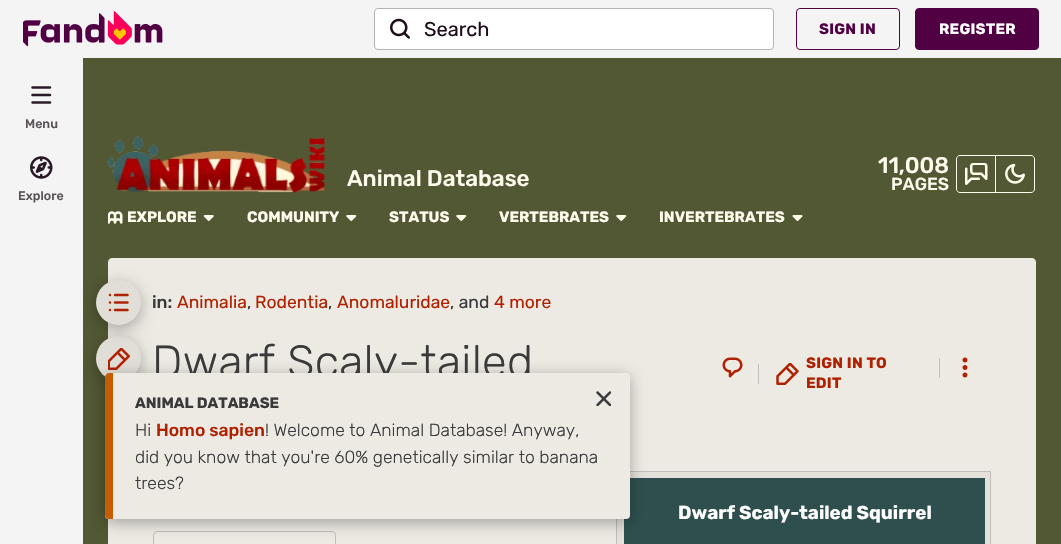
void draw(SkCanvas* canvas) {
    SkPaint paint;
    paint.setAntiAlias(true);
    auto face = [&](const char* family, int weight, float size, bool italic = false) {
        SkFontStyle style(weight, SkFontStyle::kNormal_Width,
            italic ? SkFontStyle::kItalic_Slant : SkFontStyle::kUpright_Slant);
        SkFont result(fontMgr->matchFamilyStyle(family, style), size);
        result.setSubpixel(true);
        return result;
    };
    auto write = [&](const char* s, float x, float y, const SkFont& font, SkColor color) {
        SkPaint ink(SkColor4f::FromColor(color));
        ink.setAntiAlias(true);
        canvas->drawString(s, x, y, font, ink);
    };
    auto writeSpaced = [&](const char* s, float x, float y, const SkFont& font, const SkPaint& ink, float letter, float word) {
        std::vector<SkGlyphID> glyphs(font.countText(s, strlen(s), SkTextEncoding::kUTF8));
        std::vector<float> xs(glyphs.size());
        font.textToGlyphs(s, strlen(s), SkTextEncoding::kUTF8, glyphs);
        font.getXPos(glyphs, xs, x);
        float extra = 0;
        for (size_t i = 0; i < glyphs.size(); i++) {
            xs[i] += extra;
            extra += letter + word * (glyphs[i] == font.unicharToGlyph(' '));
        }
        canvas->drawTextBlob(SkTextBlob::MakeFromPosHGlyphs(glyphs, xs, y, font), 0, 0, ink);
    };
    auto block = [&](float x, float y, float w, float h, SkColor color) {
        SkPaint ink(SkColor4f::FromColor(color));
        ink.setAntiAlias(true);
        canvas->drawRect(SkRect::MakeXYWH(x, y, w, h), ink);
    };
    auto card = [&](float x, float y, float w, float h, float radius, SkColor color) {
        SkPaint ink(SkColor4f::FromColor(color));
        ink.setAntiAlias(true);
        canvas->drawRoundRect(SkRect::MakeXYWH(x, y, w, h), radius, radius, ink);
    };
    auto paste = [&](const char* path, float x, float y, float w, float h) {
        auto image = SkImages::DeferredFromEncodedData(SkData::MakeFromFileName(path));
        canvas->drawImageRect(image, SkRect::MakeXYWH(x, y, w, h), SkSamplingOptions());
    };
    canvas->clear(SkColorSetRGB(82, 88, 51));
    block(0, 0, 1061, 58, SkColorSetRGB(244, 244, 244));
    paste("pic1.png", 23, 11, 140, 36);
    paint.setColor(SK_ColorWHITE);
    canvas->drawRoundRect(SkRect::MakeXYWH(374.5f, 8.5f, 399, 41), 3.5f, 3.5f, paint);
    paint.setStyle(SkPaint::kStroke_Style);
    paint.setStrokeWidth(1);
    paint.setColor(SkColorSetRGB(179, 179, 179));
    canvas->drawRoundRect(SkRect::MakeXYWH(374.5f, 8.5f, 399, 41), 3.5f, 3.5f, paint);
    paste("pic2.png", 390, 18, 20, 21);
    auto kFont1 = face("Rubik", 400, 20);
    write("Search", 424, 36, kFont1, SkColorSetRGB(30, 12, 27));
    paint.setColor(SkColorSetRGB(82, 0, 68));
    canvas->drawRoundRect(SkRect::MakeXYWH(796.5f, 8.5f, 103, 41), 3.5f, 3.5f, paint);
    auto kFont2 = face("Rubik", 700, 15);
    paint.setStyle(SkPaint::kFill_Style);
    writeSpaced("SIGN IN", 819, 34, kFont2, paint, 0.25f, 0);
    canvas->drawRoundRect(SkRect::MakeXYWH(915.5f, 8.5f, 123, 41), 3.5f, 3.5f, paint);
    paint.setStyle(SkPaint::kStroke_Style);
    canvas->drawRoundRect(SkRect::MakeXYWH(915.5f, 8.5f, 123, 41), 3.5f, 3.5f, paint);
    paint.setStyle(SkPaint::kFill_Style);
    paint.setColor(SK_ColorWHITE);
    writeSpaced("REGISTER", 939, 34, kFont2, paint, 0.25f, 0);
    paint.setColor(SkColorSetRGB(237, 234, 227));
    canvas->drawPath(SkPathBuilder().moveTo(112, 258).lineTo(1032, 258).cubicTo(1034, 258, 1036, 260, 1036, 262).lineTo(1036, 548).lineTo(108, 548).lineTo(108, 262).cubicTo(108, 260, 110, 258, 112, 258).close().detach(), paint);
    paint.setColor(SkColorSetARGB(77, 0, 0, 0));
    paint.setMaskFilter(SkMaskFilter::MakeBlur(kNormal_SkBlurStyle, 7.5f));
    canvas->drawRoundRect(SkRect::MakeXYWH(96, 340, 45, 45), 22.5f, 22.5f, paint);
    paint.setMaskFilter(nullptr);
    paint.setColor(SkColorSetRGB(225, 222, 216));
    canvas->drawCircle(118.5f, 358.5f, 22.5f, paint);
    paste("pic13.png", 108, 348, 22, 22);
    paint.setColor(SkColorSetARGB(77, 0, 0, 0));
    paint.setMaskFilter(SkMaskFilter::MakeBlur(kNormal_SkBlurStyle, 7.5f));
    canvas->drawRoundRect(SkRect::MakeXYWH(96, 284, 45, 45), 22.5f, 22.5f, paint);
    paint.setMaskFilter(nullptr);
    paint.setColor(SkColorSetRGB(228, 225, 219));
    canvas->drawRect(SkRect::MakeXYWH(616.5f, 471.5f, 374, 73), paint);
    paint.setStyle(SkPaint::kStroke_Style);
    paint.setColor(SkColorSetRGB(192, 190, 185));
    canvas->drawRect(SkRect::MakeXYWH(616.5f, 471.5f, 374, 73), paint);
    block(624, 478, 361, 66, SkColorSetRGB(47, 79, 79));
    canvas->drawRoundRect(SkRect::MakeXYWH(153.5f, 531.5f, 182, 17), 3.5f, 3.5f, paint);
    paint.setStyle(SkPaint::kFill_Style);
    paint.setColor(SkColorSetARGB(77, 0, 0, 0));
    paint.setMaskFilter(SkMaskFilter::MakeBlur(kNormal_SkBlurStyle, 7.5f));
    canvas->drawRoundRect(SkRect::MakeXYWH(105, 376, 525, 147), 4, 4, paint);
    paint.setMaskFilter(nullptr);
    block(0, 58, 83, 486, SkColorSetRGB(244, 244, 244));
    paste("pic3.png", 31, 86, 21, 18);
    auto kFont3 = face("Rubik", 500, 12.5f);
    write("Menu", 25, 128, kFont3, SkColorSetRGB(89, 83, 88));
    paste("pic4.png", 30, 156, 23, 23);
    write("Explore", 18, 200, kFont3, SkColorSetRGB(89, 83, 88));
    paste("pic5.png", 107, 136, 218, 57);
    auto kFont4 = face("Rubik", 500, 22.5f);
    write("Animal Database", 347, 186, kFont4, SkColorSetRGB(255, 252, 238));
    write("11,008", 878, 173, kFont4, SkColorSetRGB(255, 252, 238));
    auto kFont5 = face("Rubik", 500, 17.5f);
    write("PAGES", 891, 190, kFont5, SkColorSetRGB(255, 252, 238));
    paint.setStyle(SkPaint::kStroke_Style);
    paint.setColor(SkColorSetRGB(255, 252, 238));
    canvas->drawPath(SkPathBuilder().moveTo(960, 155.5f).lineTo(995.5f, 155.5f).lineTo(995.5f, 192.5f).lineTo(960, 192.5f).cubicTo(958, 192.5f, 956.5f, 191, 956.5f, 189).lineTo(956.5f, 159).cubicTo(956.5f, 157, 958, 155.5f, 960, 155.5f).close().detach(), paint);
    paste("pic6.png", 965, 163, 23, 22);
    canvas->drawPath(SkPathBuilder().moveTo(995.5f, 155.5f).lineTo(1031, 155.5f).cubicTo(1033, 155.5f, 1034.5f, 157, 1034.5f, 159).lineTo(1034.5f, 189).cubicTo(1034.5f, 191, 1033, 192.5f, 1031, 192.5f).lineTo(995.5f, 192.5f).close().detach(), paint);
    paste("pic7.png", 1005, 163, 20, 21);
    paste("pic8.png", 108, 211, 15, 13);
    write("EXPLORE", 127, 222, kFont2, SkColorSetRGB(255, 252, 238));
    paste("pic9.png", 203, 215, 11, 6);
    write("COMMUNITY", 247, 222, kFont2, SkColorSetRGB(255, 252, 238));
    paste("pic10.png", 346, 215, 11, 6);
    write("STATUS", 389, 222, kFont2, SkColorSetRGB(255, 252, 238));
    paste("pic10.png", 456, 215, 11, 6);
    write("VERTEBRATES", 499, 222, kFont2, SkColorSetRGB(255, 252, 238));
    paste("pic10.png", 616, 215, 11, 6);
    write("INVERTEBRATES", 659, 222, kFont2, SkColorSetRGB(255, 252, 238));
    paste("pic11.png", 792, 215, 11, 6);
    paint.setStyle(SkPaint::kFill_Style);
    paint.setColor(SkColorSetRGB(225, 222, 216));
    canvas->drawCircle(118.5f, 302.5f, 22.5f, paint);
    paste("pic12.png", 108, 293, 21, 19);
    write("in:", 152, 308, kFont5, SkColorSetRGB(58, 58, 58));
    auto kFont6 = face("Rubik", 400, 17.5f);
    write("Animalia", 177, 308, kFont6, SkColorSetRGB(176, 33, 1));
    write(",", 247, 308, kFont6, SkColorSetRGB(58, 58, 58));
    write("Rodentia", 255, 308, kFont6, SkColorSetRGB(176, 33, 1));
    write(",", 328, 308, kFont6, SkColorSetRGB(58, 58, 58));
    write("Anomaluridae", 337, 308, kFont6, SkColorSetRGB(176, 33, 1));
    write(", and", 450, 308, kFont6, SkColorSetRGB(58, 58, 58));
    write("4 more", 494, 308, kFont6, SkColorSetRGB(176, 33, 1));
    auto kFont7 = face("Rubik", 300, 45);
    paint.setColor(SkColorSetRGB(58, 58, 58));
    writeSpaced("Dwarf Scaly-tailed", 152, 377, kFont7, paint, 0.3f, 0);
    paste("pic14.png", 722, 357, 21, 21);
    block(758, 364, 1, 20, SkColorSetRGB(192, 190, 185));
    paste("pic15.png", 776, 363, 23, 22);
    paint.setColor(SkColorSetRGB(176, 33, 1));
    writeSpaced("SIGN IN TO", 806, 368, kFont2, paint, 0.25f, 0);
    writeSpaced("EDIT", 806, 388, kFont2, paint, 0.25f, 0);
    block(939, 358, 1, 20, SkColorSetRGB(192, 190, 185));
    paste("pic16.png", 962, 357, 6, 21);
    auto kFont8 = face("Rubik", 700, 18.75f);
    write("Dwarf Scaly-tailed Squirrel", 678, 519, kFont8, SK_ColorWHITE);
    card(105, 373, 525, 146, 4, SkColorSetRGB(237, 234, 227));
    paint.setColor(SkColorSetRGB(198, 93, 2));
    canvas->drawPath(SkPathBuilder().moveTo(109, 373).lineTo(113, 373).lineTo(113, 519).lineTo(109, 519).cubicTo(107, 519, 105, 517, 105, 515).lineTo(105, 377).cubicTo(105, 375, 107, 373, 109, 373).close().detach(), paint);
    write("ANIMAL DATABASE", 135, 408, kFont2, SkColorSetRGB(58, 58, 58));
    paste("pic17.png", 596, 391, 15, 15);
    auto kFont9 = face("Rubik", 300, 17.5f);
    write("Hi", 135, 436, kFont9, SkColorSetRGB(58, 58, 58));
    write("Homo sapien", 156, 436, kFont5, SkColorSetRGB(176, 33, 1));
    write("! Welcome to Animal Database! Anyway,", 265, 436, kFont9, SkColorSetRGB(58, 58, 58));
    write("did you know that you're 60% genetically similar to banana", 135, 463, kFont9, SkColorSetRGB(58, 58, 58));
    write("trees?", 135, 489, kFont9, SkColorSetRGB(58, 58, 58));
}
